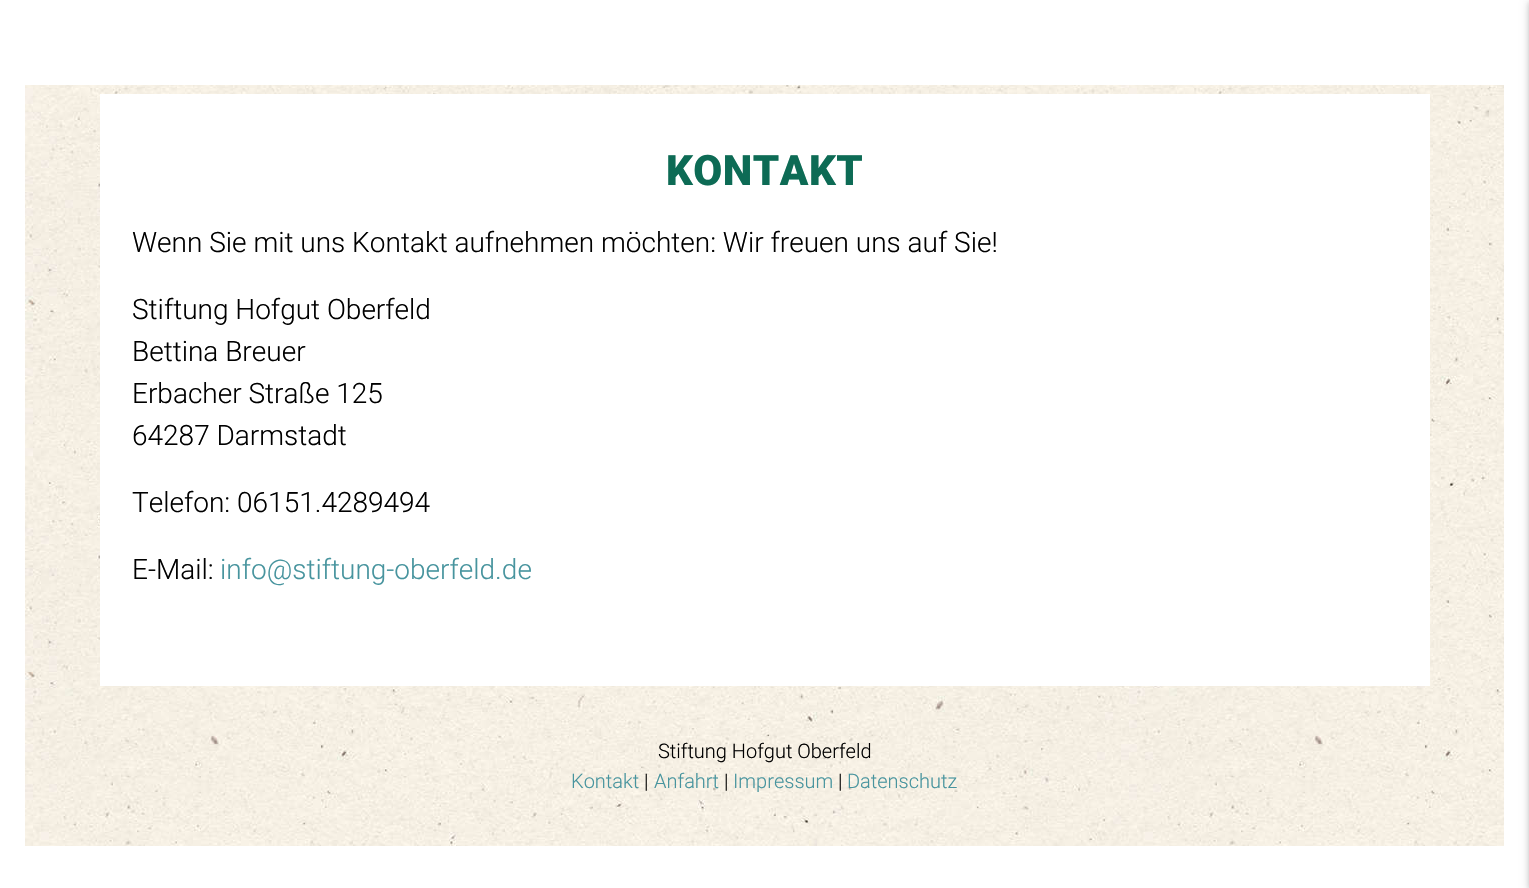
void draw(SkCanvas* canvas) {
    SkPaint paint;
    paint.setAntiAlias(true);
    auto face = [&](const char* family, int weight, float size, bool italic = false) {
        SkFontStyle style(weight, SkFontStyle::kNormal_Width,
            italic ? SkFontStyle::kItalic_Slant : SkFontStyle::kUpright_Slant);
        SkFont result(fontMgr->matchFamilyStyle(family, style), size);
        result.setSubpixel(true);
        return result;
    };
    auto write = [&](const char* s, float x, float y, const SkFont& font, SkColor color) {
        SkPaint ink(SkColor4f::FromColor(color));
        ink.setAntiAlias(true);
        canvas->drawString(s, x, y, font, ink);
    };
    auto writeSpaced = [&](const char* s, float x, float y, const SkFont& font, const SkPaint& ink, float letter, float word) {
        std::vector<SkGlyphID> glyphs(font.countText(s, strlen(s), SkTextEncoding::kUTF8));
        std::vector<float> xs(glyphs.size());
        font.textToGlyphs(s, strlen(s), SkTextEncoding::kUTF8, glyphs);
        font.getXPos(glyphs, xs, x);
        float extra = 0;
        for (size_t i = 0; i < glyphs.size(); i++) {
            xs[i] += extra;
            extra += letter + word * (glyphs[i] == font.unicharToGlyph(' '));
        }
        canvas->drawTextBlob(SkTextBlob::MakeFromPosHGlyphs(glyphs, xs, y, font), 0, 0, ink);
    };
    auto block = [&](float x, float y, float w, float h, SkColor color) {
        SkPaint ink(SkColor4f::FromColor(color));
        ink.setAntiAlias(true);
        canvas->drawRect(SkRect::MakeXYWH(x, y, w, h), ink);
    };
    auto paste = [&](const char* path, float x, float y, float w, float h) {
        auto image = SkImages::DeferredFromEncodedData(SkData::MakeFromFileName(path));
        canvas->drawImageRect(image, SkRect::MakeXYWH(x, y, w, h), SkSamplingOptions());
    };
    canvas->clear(SK_ColorWHITE);
    paste("pic1.png", 25, 85, 1479, 761);
    block(100, 94, 1330, 592, SK_ColorWHITE);
    auto kFont1 = face("Roboto", 900, 42);
    paint.setColor(SkColorSetRGB(13, 107, 85));
    writeSpaced("KONTAKT", 666, 185, kFont1, paint, 0.5f, 0);
    auto kFont2 = face("Roboto", 300, 28);
    write("Wenn Sie mit uns Kontakt aufnehmen möchten: Wir freuen uns auf Sie!", 132, 252, kFont2, SK_ColorBLACK);
    write("Stiftung Hofgut Oberfeld", 132, 319, kFont2, SK_ColorBLACK);
    write("Bettina Breuer", 132, 361, kFont2, SK_ColorBLACK);
    write("Erbacher Straße 125", 132, 403, kFont2, SK_ColorBLACK);
    write("64287 Darmstadt", 132, 445, kFont2, SK_ColorBLACK);
    write("Telefon: 06151.4289494", 132, 512, kFont2, SK_ColorBLACK);
    write("E-Mail:", 132, 579, kFont2, SK_ColorBLACK);
    write("info@stiftung-oberfeld.de", 220, 579, kFont2, SkColorSetRGB(71, 148, 158));
    paint.setColor(SkColorSetARGB(31, 0, 0, 0));
    paint.setMaskFilter(SkMaskFilter::MakeBlur(kNormal_SkBlurStyle, 5));
    canvas->drawRect(SkRect::MakeXYWH(1529, 2, 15, 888), paint);
    paint.setMaskFilter(nullptr);
    paint.setColor(SkColorSetARGB(41, 0, 0, 0));
    paint.setMaskFilter(SkMaskFilter::MakeBlur(kNormal_SkBlurStyle, 2.5f));
    canvas->drawRect(SkRect::MakeXYWH(1529, 2, 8, 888), paint);
    paint.setMaskFilter(nullptr);
    auto kFont3 = face("Roboto", 300, 20);
    write("Stiftung Hofgut Oberfeld", 658, 758, kFont3, SK_ColorBLACK);
    write("Kontakt", 571, 788, kFont3, SkColorSetRGB(71, 148, 158));
    write("|", 644, 788, kFont3, SK_ColorBLACK);
    write("Anfahrt", 654, 788, kFont3, SkColorSetRGB(71, 148, 158));
    write("|", 724, 788, kFont3, SK_ColorBLACK);
    write("Impressum", 733, 788, kFont3, SkColorSetRGB(71, 148, 158));
    write("|", 838, 788, kFont3, SK_ColorBLACK);
    write("Datenschutz", 847, 788, kFont3, SkColorSetRGB(71, 148, 158));
}
